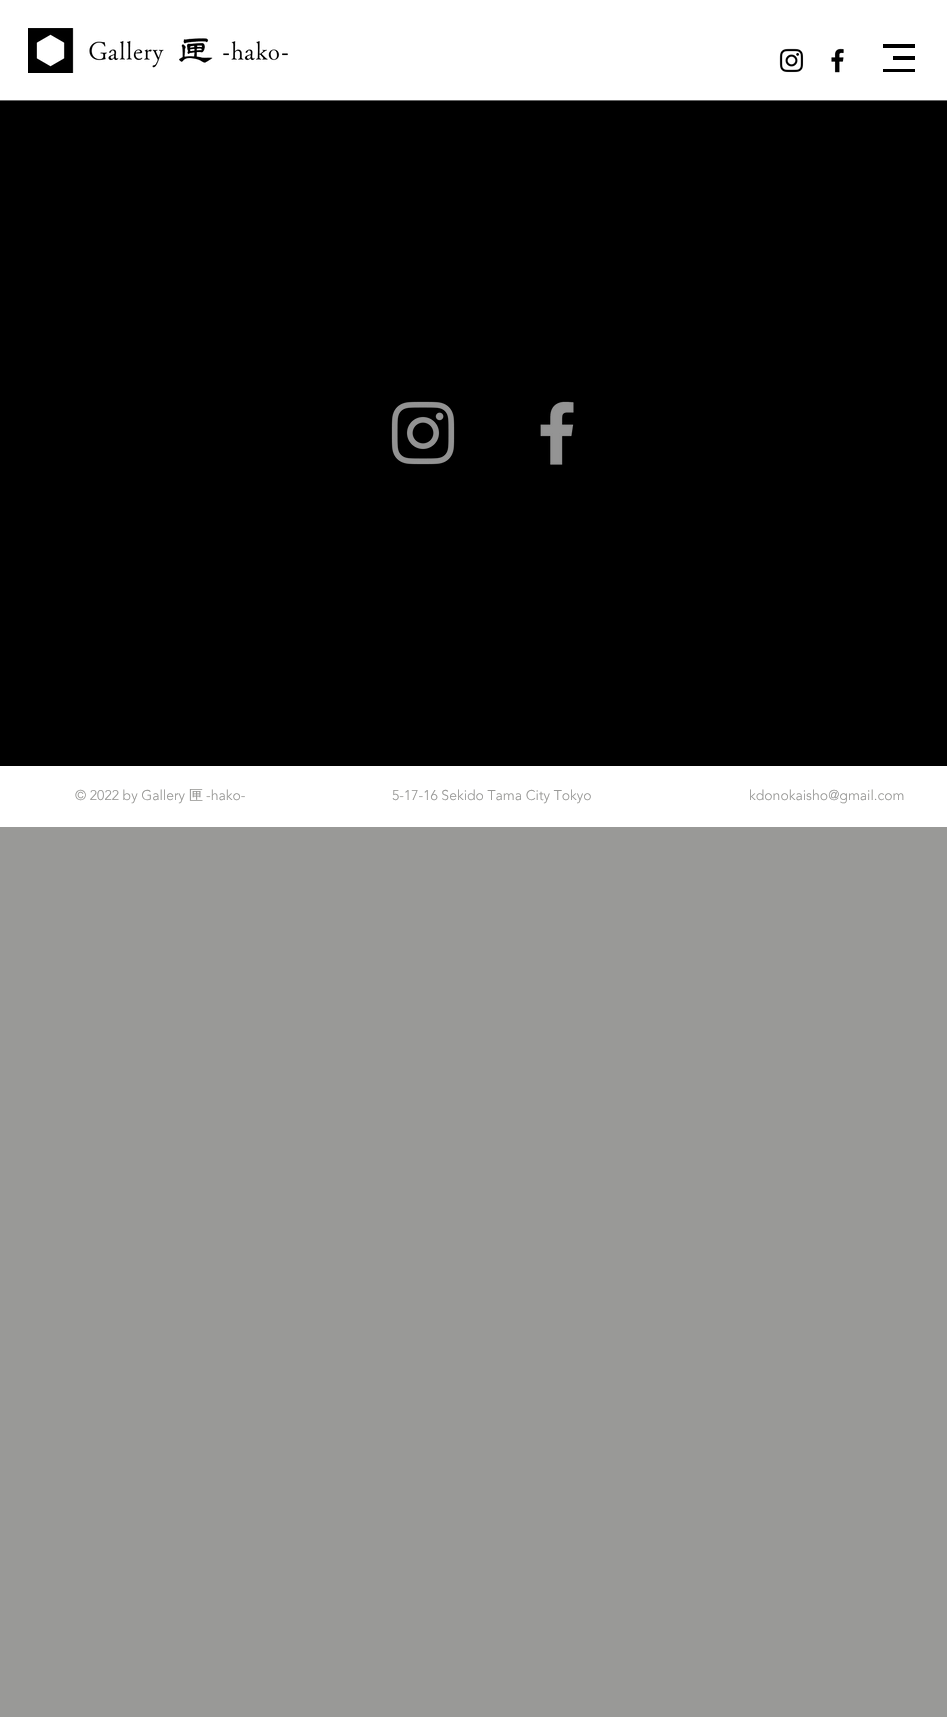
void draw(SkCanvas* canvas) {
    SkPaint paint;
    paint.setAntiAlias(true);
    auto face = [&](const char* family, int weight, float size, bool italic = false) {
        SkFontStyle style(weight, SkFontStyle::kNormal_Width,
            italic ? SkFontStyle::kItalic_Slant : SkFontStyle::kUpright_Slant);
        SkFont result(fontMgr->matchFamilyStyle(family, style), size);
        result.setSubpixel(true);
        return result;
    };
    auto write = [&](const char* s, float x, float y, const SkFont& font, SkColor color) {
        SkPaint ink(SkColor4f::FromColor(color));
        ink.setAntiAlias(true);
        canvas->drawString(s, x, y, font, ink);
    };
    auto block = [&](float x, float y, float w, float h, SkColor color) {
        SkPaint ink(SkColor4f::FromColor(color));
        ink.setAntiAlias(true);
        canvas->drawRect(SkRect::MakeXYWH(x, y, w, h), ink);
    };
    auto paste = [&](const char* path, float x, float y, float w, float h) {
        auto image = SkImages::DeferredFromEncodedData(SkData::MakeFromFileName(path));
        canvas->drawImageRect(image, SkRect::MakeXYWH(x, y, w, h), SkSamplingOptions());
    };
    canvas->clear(SkColorSetRGB(153, 153, 151));
    block(0, 0, 947, 100, SK_ColorWHITE);
    block(0, 100, 947, 1, SkColorSetRGB(102, 102, 102));
    paste("pic1.png", 28, 28, 260, 45);
    paste("pic2.png", 779, 48, 25, 25);
    paste("pic3.png", 831, 48, 13, 25);
    block(883, 44, 32, 4, SK_ColorBLACK);
    block(893, 56, 22, 4, SK_ColorBLACK);
    block(883, 69, 32, 3, SK_ColorBLACK);
    block(0, 101, 947, 665, SK_ColorBLACK);
    paste("pic4.png", 391, 401, 64, 64);
    paste("pic5.png", 540, 401, 34, 64);
    block(0, 766, 947, 61, SK_ColorWHITE);
    auto kFont1 = face("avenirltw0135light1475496", 300, 14);
    write("© 2022 by Gallery", 75, 800, kFont1, SkColorSetRGB(153, 153, 151));
    auto kFont2 = face("WenQuanYi Zen Hei", 500, 14);
    write("匣", 189, 800, kFont2, SkColorSetRGB(153, 153, 151));
    write("-hako-", 206, 800, kFont1, SkColorSetRGB(153, 153, 151));
    write("5-17-16 Sekido Tama City Tokyo", 392, 800, kFont1, SkColorSetRGB(153, 153, 151));
    write("kdonokaisho@gmail.com", 749, 800, kFont1, SkColorSetRGB(153, 153, 151));
}
